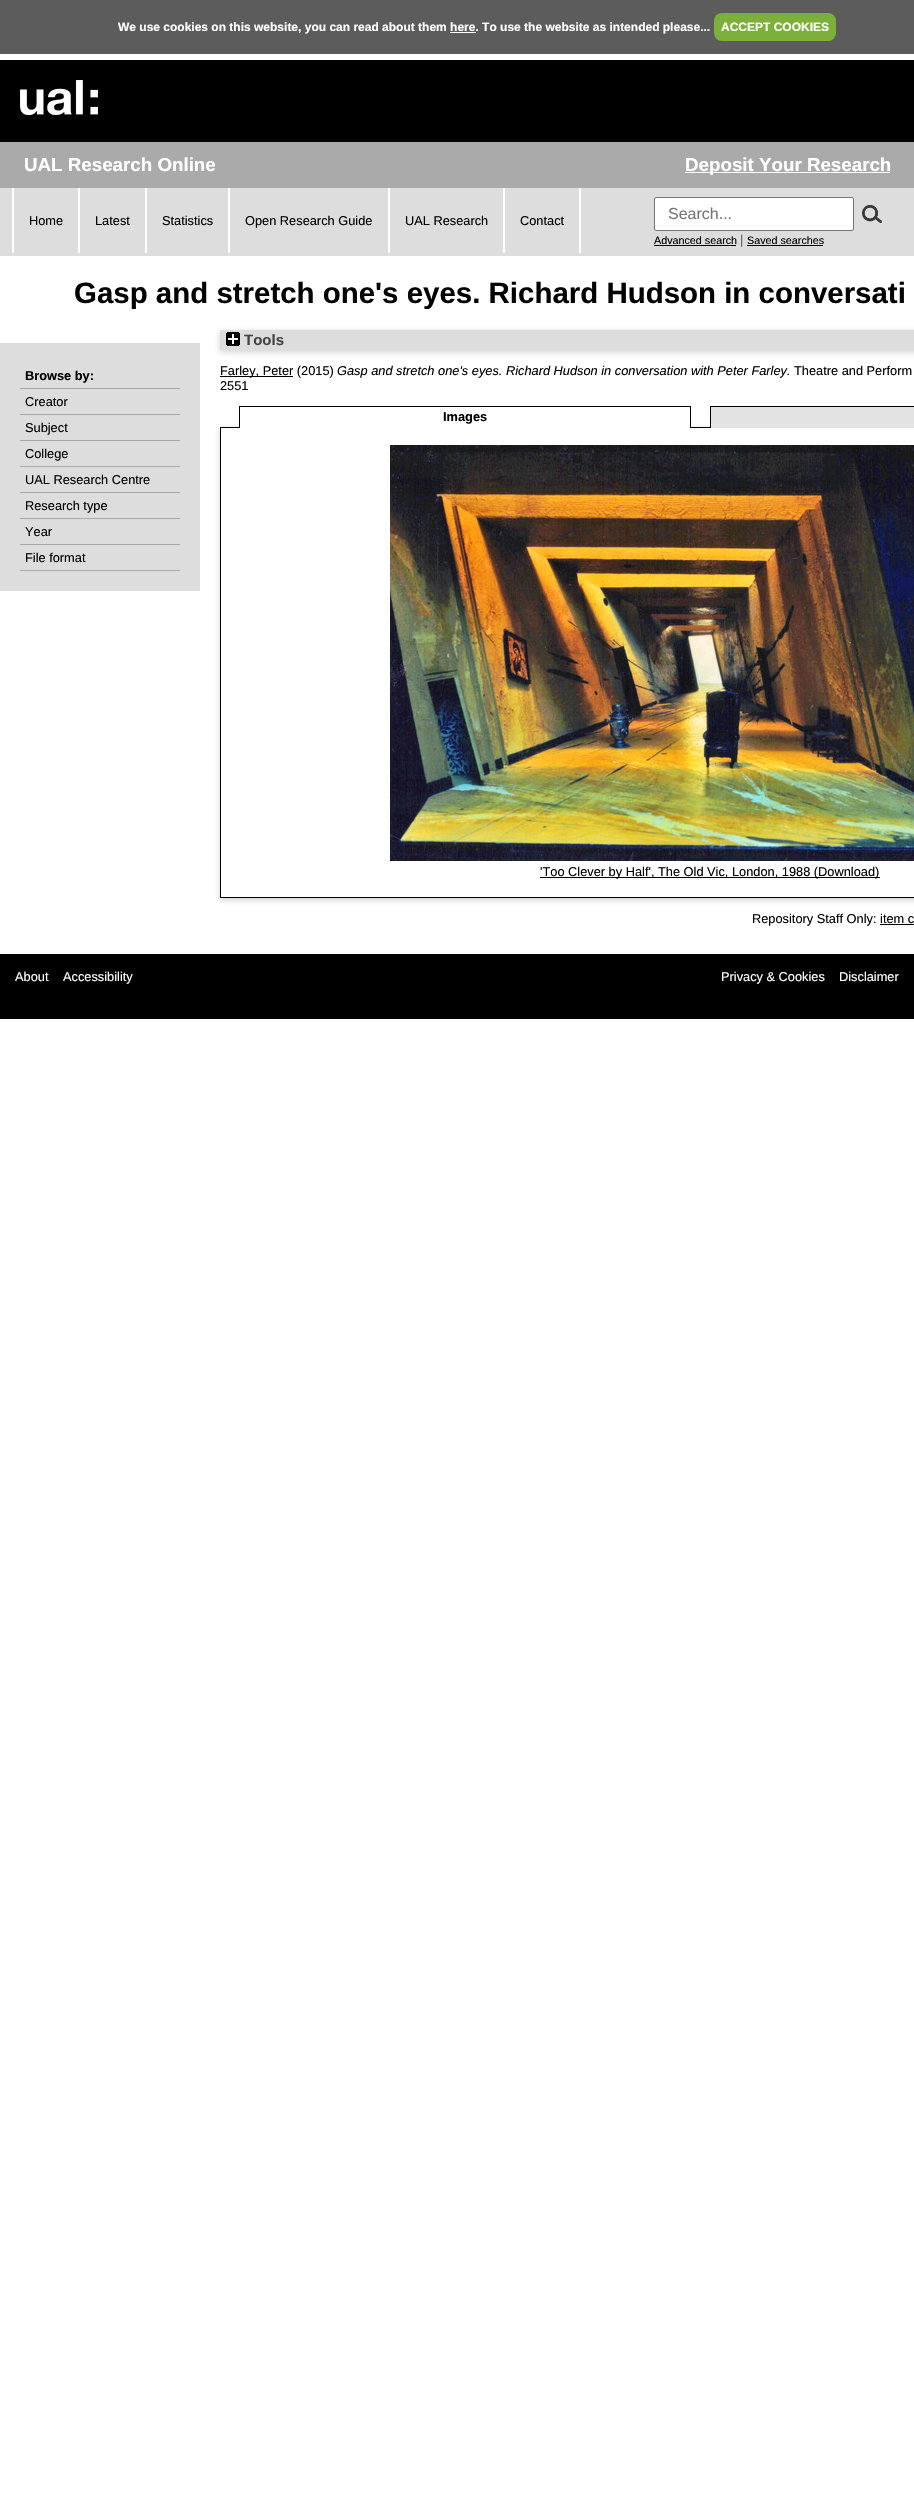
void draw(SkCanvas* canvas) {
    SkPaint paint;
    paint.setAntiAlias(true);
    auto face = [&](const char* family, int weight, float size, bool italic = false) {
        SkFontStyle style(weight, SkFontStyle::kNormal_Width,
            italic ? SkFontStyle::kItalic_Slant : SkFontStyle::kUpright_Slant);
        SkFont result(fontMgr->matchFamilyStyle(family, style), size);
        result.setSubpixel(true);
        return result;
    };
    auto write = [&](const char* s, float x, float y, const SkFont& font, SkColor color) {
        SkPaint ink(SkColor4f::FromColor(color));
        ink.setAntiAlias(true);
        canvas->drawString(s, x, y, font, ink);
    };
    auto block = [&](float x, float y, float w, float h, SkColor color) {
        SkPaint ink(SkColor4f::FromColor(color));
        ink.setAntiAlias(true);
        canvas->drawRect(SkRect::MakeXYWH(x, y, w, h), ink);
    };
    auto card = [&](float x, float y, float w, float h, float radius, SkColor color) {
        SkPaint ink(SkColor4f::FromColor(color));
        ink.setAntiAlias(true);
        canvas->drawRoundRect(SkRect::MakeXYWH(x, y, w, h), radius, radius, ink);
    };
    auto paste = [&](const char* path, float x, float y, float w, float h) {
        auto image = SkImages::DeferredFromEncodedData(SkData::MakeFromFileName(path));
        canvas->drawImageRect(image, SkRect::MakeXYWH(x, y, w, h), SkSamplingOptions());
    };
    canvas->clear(SK_ColorWHITE);
    block(0, 0, 914, 54, SkColorSetRGB(92, 92, 92));
    auto kFont1 = face("Liberation Sans", 700, 12);
    write("We use cookies on this website, you can read about them here. To use the website as intended please...", 118, 31, kFont1, SK_ColorWHITE);
    card(714, 13, 122, 28, 8, SkColorSetRGB(125, 175, 59));
    write("ACCEPT COOKIES", 721, 31, kFont1, SK_ColorWHITE);
    block(450, 32, 26, 1, SK_ColorWHITE);
    block(0, 60, 914, 82, SK_ColorBLACK);
    paste("pic1.png", 20, 80, 78, 35);
    block(0, 142, 914, 46, SkColorSetRGB(170, 170, 170));
    auto kFont2 = face("Liberation Sans", 700, 18.75f);
    write("UAL Research Online", 24, 171, kFont2, SK_ColorWHITE);
    block(685, 172, 205, 1, SK_ColorWHITE);
    write("Deposit Your Research", 685, 171, kFont2, SK_ColorWHITE);
    block(0, 188, 914, 68, SkColorSetRGB(221, 221, 221));
    block(12, 188, 2, 65, SK_ColorWHITE);
    auto kFont3 = face("Liberation Sans", 400, 12.8f);
    write("Home", 29, 225, kFont3, SK_ColorBLACK);
    block(78, 188, 2, 65, SK_ColorWHITE);
    write("Latest", 95, 225, kFont3, SK_ColorBLACK);
    block(145, 188, 2, 65, SK_ColorWHITE);
    write("Statistics", 162, 225, kFont3, SK_ColorBLACK);
    block(228, 188, 2, 65, SK_ColorWHITE);
    write("Open Research Guide", 245, 225, kFont3, SK_ColorBLACK);
    block(388, 188, 2, 65, SK_ColorWHITE);
    write("UAL Research", 405, 225, kFont3, SK_ColorBLACK);
    block(579, 188, 2, 65, SK_ColorWHITE);
    block(503, 188, 2, 65, SK_ColorWHITE);
    write("Contact", 520, 225, kFont3, SK_ColorBLACK);
    paint.setColor(SK_ColorWHITE);
    canvas->drawRoundRect(SkRect::MakeXYWH(654.5f, 197.5f, 199, 33), 1.5f, 1.5f, paint);
    paint.setStyle(SkPaint::kStroke_Style);
    paint.setStrokeWidth(1);
    paint.setColor(SkColorSetRGB(118, 118, 118));
    canvas->drawRoundRect(SkRect::MakeXYWH(654.5f, 197.5f, 199, 33), 1.5f, 1.5f, paint);
    auto kFont4 = face("Liberation Sans", 400, 16);
    write("Search...", 668, 219, kFont4, SkColorSetRGB(117, 117, 117));
    paste("pic2.png", 862, 205, 20, 18);
    auto kFont5 = face("Liberation Sans", 400, 10.75f);
    write("Advanced search", 654, 244, kFont5, SK_ColorBLACK);
    block(654, 245, 82, 1, SK_ColorBLACK);
    write("|", 740, 244, kFont3, SkColorSetRGB(96, 96, 96));
    write("Saved searches", 747, 244, kFont5, SK_ColorBLACK);
    block(747, 245, 76, 1, SK_ColorBLACK);
    auto kFont6 = face("Liberation Sans", 700, 29.45f);
    write("Gasp and stretch one's eyes. Richard Hudson in conversati", 74, 303, kFont6, SK_ColorBLACK);
    block(0, 343, 200, 248, SkColorSetRGB(221, 221, 221));
    block(20, 388, 160, 1, SkColorSetRGB(170, 170, 170));
    auto kFont7 = face("Liberation Sans", 700, 12.8f);
    write("Browse by:", 25, 380, kFont7, SK_ColorBLACK);
    block(20, 414, 160, 1, SkColorSetRGB(170, 170, 170));
    write("Creator", 25, 406, kFont3, SK_ColorBLACK);
    block(20, 440, 160, 1, SkColorSetRGB(170, 170, 170));
    write("Subject", 25, 432, kFont3, SK_ColorBLACK);
    block(20, 466, 160, 1, SkColorSetRGB(170, 170, 170));
    write("College", 25, 458, kFont3, SK_ColorBLACK);
    block(20, 492, 160, 1, SkColorSetRGB(170, 170, 170));
    write("UAL Research Centre", 25, 484, kFont3, SK_ColorBLACK);
    block(20, 518, 160, 1, SkColorSetRGB(170, 170, 170));
    write("Research type", 25, 510, kFont3, SK_ColorBLACK);
    block(20, 544, 160, 1, SkColorSetRGB(170, 170, 170));
    write("Year", 25, 536, kFont3, SK_ColorBLACK);
    block(20, 570, 160, 1, SkColorSetRGB(170, 170, 170));
    write("File format", 25, 562, kFont3, SK_ColorBLACK);
    paint.setStyle(SkPaint::kFill_Style);
    paint.setColor(SkColorSetARGB(77, 100, 100, 100));
    paint.setMaskFilter(SkMaskFilter::MakeBlur(kNormal_SkBlurStyle, 3));
    canvas->drawRect(SkRect::MakeXYWH(220, 332, 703, 20), paint);
    paint.setMaskFilter(nullptr);
    block(220, 330, 694, 20, SkColorSetRGB(221, 221, 221));
    paste("pic3.png", 226, 332, 14, 14);
    auto kFont8 = face("Liberation Sans", 700, 15);
    write("Tools", 244, 345, kFont8, SkColorSetRGB(68, 68, 68));
    block(220, 376, 73, 1, SK_ColorBLACK);
    write("Farley, Peter (2015)", 220, 375, kFont3, SK_ColorBLACK);
    auto kFont9 = face("Liberation Sans", 400, 12.8f, true);
    write("Gasp and stretch one's eyes. Richard Hudson in conversation with Peter Farley.", 337, 375, kFont9, SK_ColorBLACK);
    write("Theatre and Perform", 794, 375, kFont3, SK_ColorBLACK);
    write("2551", 220, 390, kFont3, SK_ColorBLACK);
    canvas->save();
    canvas->clipPath(SkPathBuilder(SkPathFillType::kEvenOdd).moveTo(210, 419).lineTo(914, 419).lineTo(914, 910).lineTo(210, 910).close().moveTo(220, 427).lineTo(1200, 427).lineTo(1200, 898).lineTo(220, 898).close().detach(), true);
    paint.setMaskFilter(SkMaskFilter::MakeBlur(kNormal_SkBlurStyle, 3));
    canvas->drawRect(SkRect::MakeXYWH(220, 429, 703, 471), paint);
    paint.setMaskFilter(nullptr);
    canvas->restore();
    block(220, 897, 694, 1, SK_ColorBLACK);
    block(220, 427, 1, 471, SK_ColorBLACK);
    block(220, 427, 490, 1, SK_ColorBLACK);
    block(240, 424, 450, 4, SK_ColorWHITE);
    block(239, 406, 452, 1, SK_ColorBLACK);
    block(690, 406, 1, 22, SK_ColorBLACK);
    block(239, 406, 1, 22, SK_ColorBLACK);
    write("Images", 443, 421, kFont7, SK_ColorBLACK);
    block(711, 407, 203, 21, SkColorSetRGB(227, 227, 227));
    block(710, 406, 204, 1, SK_ColorBLACK);
    block(710, 406, 1, 22, SK_ColorBLACK);
    paste("pic4.png", 390, 445, 524, 416);
    block(540, 877, 340, 1, SK_ColorBLACK);
    write("'Too Clever by Half', The Old Vic, London, 1988 (Download)", 540, 876, kFont3, SK_ColorBLACK);
    write("Repository Staff Only: item c", 752, 923, kFont3, SK_ColorBLACK);
    block(880, 924, 34, 1, SK_ColorBLACK);
    block(0, 954, 914, 65, SK_ColorBLACK);
    write("About", 15, 981, kFont3, SK_ColorWHITE);
    write("Accessibility", 63, 981, kFont3, SK_ColorWHITE);
    write("Privacy & Cookies", 721, 981, kFont3, SK_ColorWHITE);
    write("Disclaimer", 839, 981, kFont3, SK_ColorWHITE);
}
